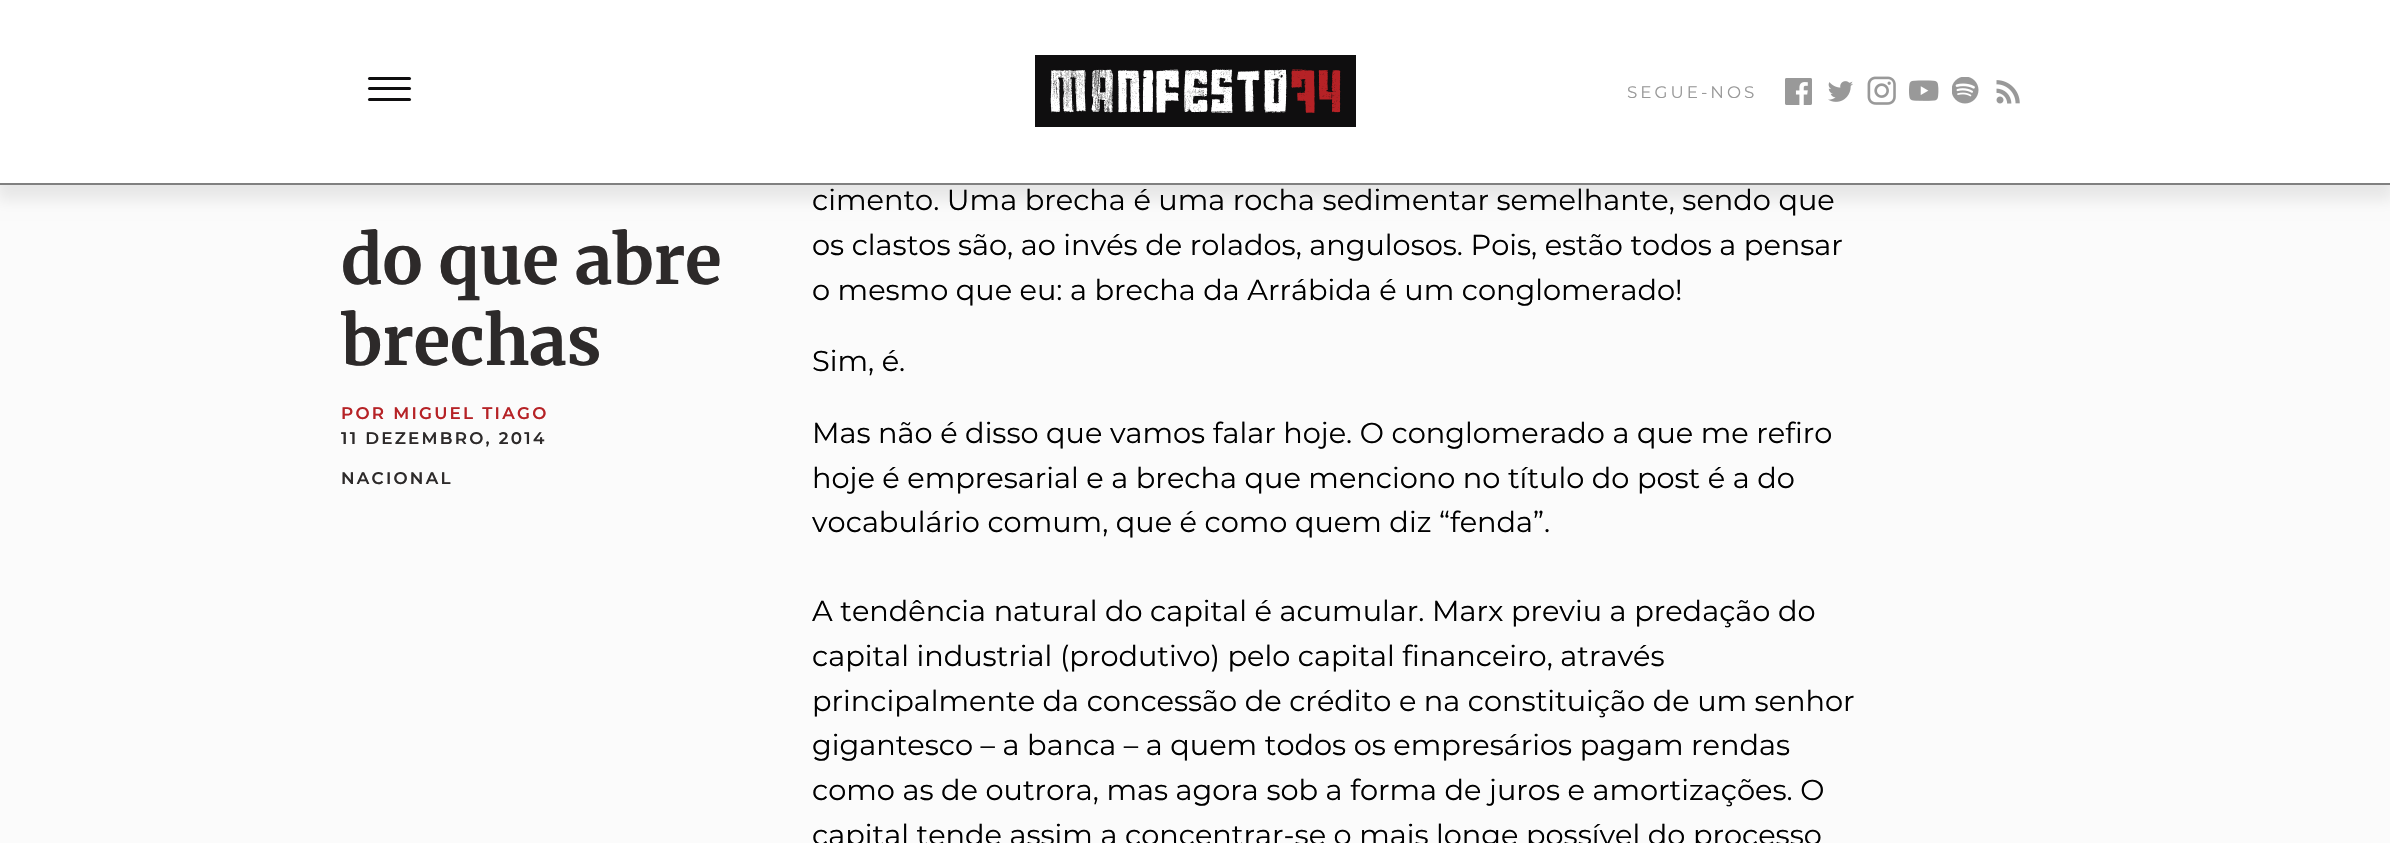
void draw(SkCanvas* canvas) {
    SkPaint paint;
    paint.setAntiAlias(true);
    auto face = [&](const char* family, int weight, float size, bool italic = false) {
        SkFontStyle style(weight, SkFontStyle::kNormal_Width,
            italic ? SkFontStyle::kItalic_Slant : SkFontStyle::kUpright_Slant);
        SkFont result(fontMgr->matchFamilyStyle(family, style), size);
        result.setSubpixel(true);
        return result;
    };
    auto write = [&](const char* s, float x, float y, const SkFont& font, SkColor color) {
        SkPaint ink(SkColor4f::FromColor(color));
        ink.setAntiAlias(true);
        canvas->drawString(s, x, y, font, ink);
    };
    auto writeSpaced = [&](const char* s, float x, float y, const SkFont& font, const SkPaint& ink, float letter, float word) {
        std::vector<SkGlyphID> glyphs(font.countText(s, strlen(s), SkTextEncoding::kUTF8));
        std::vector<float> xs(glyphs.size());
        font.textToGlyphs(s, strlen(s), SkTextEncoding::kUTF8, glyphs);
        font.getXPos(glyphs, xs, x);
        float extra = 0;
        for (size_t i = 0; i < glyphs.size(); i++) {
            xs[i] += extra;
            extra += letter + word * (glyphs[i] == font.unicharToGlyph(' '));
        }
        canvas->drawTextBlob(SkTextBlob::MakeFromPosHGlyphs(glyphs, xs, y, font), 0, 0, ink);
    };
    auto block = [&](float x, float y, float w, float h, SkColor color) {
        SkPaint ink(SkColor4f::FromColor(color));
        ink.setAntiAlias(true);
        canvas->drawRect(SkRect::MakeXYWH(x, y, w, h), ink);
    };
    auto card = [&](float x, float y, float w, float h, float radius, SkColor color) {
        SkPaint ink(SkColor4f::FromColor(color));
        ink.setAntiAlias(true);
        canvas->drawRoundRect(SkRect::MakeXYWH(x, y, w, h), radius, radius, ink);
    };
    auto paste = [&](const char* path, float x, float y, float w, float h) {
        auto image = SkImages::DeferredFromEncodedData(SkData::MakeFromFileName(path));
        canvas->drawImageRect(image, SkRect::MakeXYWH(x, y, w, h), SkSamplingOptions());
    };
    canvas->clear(SkColorSetRGB(251, 251, 251));
    paint.setColor(SkColorSetARGB(20, 0, 0, 0));
    paint.setMaskFilter(SkMaskFilter::MakeBlur(kNormal_SkBlurStyle, 7));
    canvas->drawRect(SkRect::MakeXYWH(-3, 9, 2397, 191), paint);
    paint.setMaskFilter(nullptr);
    block(0, 0, 2390, 183, SK_ColorWHITE);
    block(0, 183, 2390, 2, SkColorSetRGB(128, 128, 128));
    card(368, 77, 43, 3, 1.5f, SkColorSetRGB(15, 14, 15));
    card(368, 87, 43, 3, 1.5f, SkColorSetRGB(15, 14, 15));
    card(368, 98, 43, 3, 1.5f, SkColorSetRGB(15, 14, 15));
    paste("pic1.png", 1035, 55, 321, 72);
    auto kFont1 = face("Montserrat", 400, 16.75f);
    paint.setColor(SkColorSetRGB(153, 153, 153));
    writeSpaced("SEGUE-NOS", 1627, 98, kFont1, paint, 3, 0);
    paste("pic2.png", 1785, 78, 27, 27);
    paste("pic3.png", 1828, 81, 25, 21);
    paste("pic4.png", 1867, 76, 29, 29);
    paste("pic5.png", 1909, 80, 30, 21);
    paste("pic6.png", 1952, 77, 27, 27);
    paste("pic7.png", 1996, 80, 24, 24);
    auto kFont2 = face("Merriweather", 700, 67.25f);
    write("do que abre", 341, 284, kFont2, SkColorSetRGB(45, 42, 42));
    canvas->save();
    canvas->clipRect(SkRect::MakeXYWH(341, 45, 1710, 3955));
    write("brechas", 341, 365, kFont2, SkColorSetRGB(45, 42, 42));
    canvas->restore();
    auto kFont3 = face("Montserrat", 600, 16.75f);
    paint.setColor(SkColorSetRGB(182, 34, 38));
    writeSpaced("POR MIGUEL TIAGO", 341, 419, kFont3, paint, 2.25f, 0);
    paint.setColor(SkColorSetRGB(45, 42, 42));
    writeSpaced("11 DEZEMBRO, 2014", 341, 444, kFont3, paint, 2.25f, 0);
    writeSpaced("NACIONAL", 341, 484, kFont3, paint, 2.25f, 0);
    auto kFont4 = face("Montserrat", 400, 28.8f);
    write("cimento. Uma brecha é uma rocha sedimentar semelhante, sendo que", 812, 210, kFont4, SK_ColorBLACK);
    write("os clastos são, ao invés de rolados, angulosos. Pois, estão todos a pensar", 812, 255, kFont4, SK_ColorBLACK);
    write("o mesmo que eu: a brecha da Arrábida é um conglomerado!", 812, 300, kFont4, SK_ColorBLACK);
    write("Sim, é.", 812, 371, kFont4, SK_ColorBLACK);
    write("Mas não é disso que vamos falar hoje. O conglomerado a que me refiro", 812, 443, kFont4, SK_ColorBLACK);
    write("hoje é empresarial e a brecha que menciono no título do post é a do", 812, 488, kFont4, SK_ColorBLACK);
    write("vocabulário comum, que é como quem diz “fenda”.", 812, 532, kFont4, SK_ColorBLACK);
    write("A tendência natural do capital é acumular. Marx previu a predação do", 812, 621, kFont4, SK_ColorBLACK);
    write("capital industrial (produtivo) pelo capital financeiro, através", 812, 666, kFont4, SK_ColorBLACK);
    write("principalmente da concessão de crédito e na constituição de um senhor", 812, 711, kFont4, SK_ColorBLACK);
    write("gigantesco – a banca – a quem todos os empresários pagam rendas", 812, 755, kFont4, SK_ColorBLACK);
    write("como as de outrora, mas agora sob a forma de juros e amortizações. O", 812, 800, kFont4, SK_ColorBLACK);
    write("capital tende assim a concentrar-se o mais longe possível do processo", 812, 845, kFont4, SK_ColorBLACK);
}
